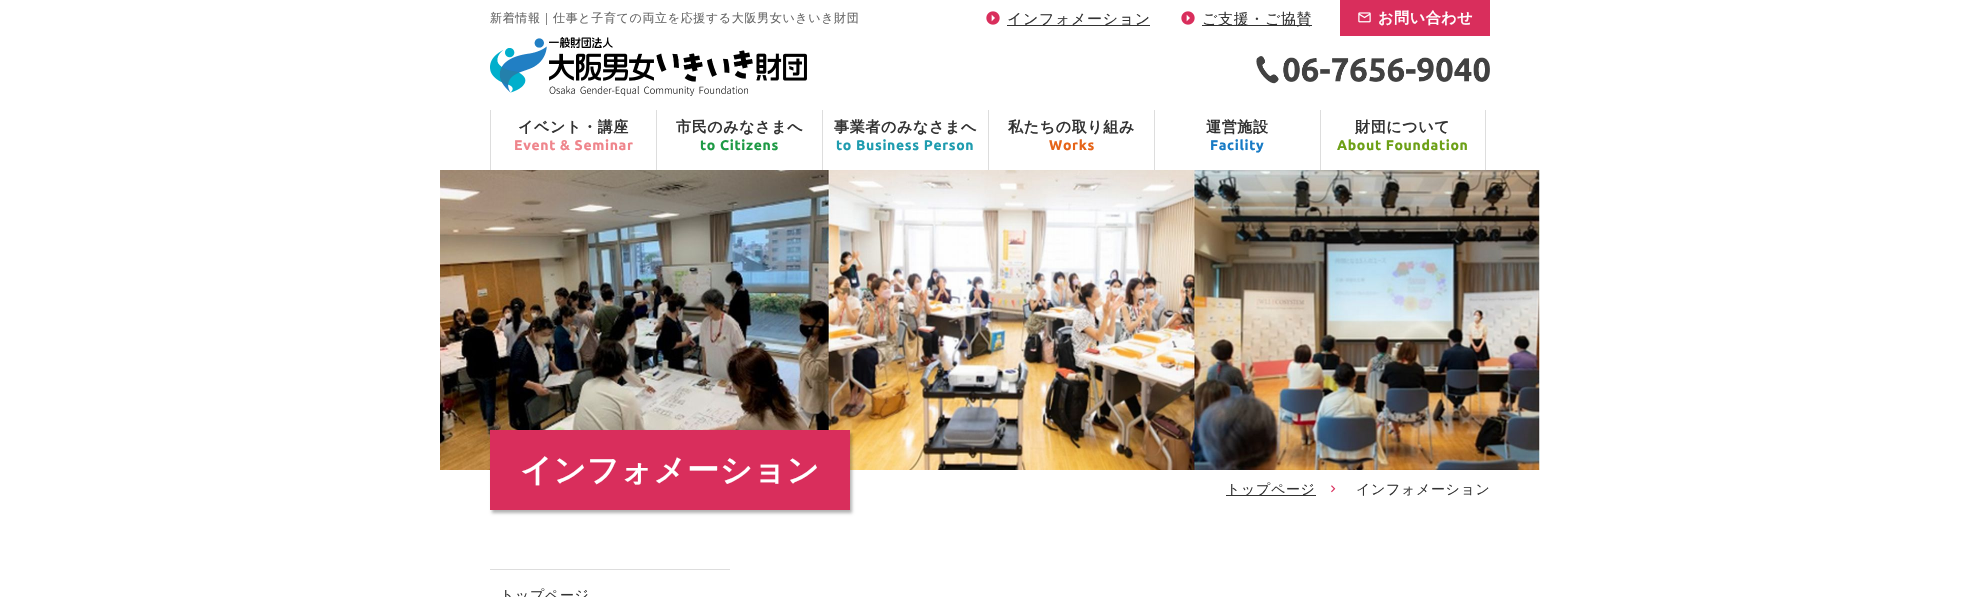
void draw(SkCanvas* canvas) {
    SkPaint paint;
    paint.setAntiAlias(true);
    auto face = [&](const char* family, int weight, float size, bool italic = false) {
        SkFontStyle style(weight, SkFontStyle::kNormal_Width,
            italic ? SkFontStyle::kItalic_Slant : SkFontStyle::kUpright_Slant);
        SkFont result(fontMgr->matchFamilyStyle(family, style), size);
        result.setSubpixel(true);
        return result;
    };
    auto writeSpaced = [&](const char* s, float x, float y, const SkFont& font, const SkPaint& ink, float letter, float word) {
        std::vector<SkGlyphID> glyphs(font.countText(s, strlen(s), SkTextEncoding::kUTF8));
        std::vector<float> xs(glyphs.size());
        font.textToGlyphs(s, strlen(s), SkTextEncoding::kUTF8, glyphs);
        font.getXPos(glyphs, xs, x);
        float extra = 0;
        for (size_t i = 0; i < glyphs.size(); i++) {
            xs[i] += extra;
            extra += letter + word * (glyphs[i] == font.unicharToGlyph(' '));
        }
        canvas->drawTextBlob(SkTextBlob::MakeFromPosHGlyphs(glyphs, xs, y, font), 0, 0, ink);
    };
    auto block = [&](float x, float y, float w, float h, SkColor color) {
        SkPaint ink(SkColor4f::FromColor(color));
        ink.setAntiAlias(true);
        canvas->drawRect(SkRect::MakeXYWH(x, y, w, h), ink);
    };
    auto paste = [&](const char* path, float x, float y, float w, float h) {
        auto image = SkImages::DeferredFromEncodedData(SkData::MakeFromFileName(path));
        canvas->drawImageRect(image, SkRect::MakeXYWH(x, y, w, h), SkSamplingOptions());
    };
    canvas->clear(SK_ColorWHITE);
    auto kFont1 = face("WenQuanYi Zen Hei", 500, 12);
    paint.setColor(SkColorSetRGB(102, 102, 102));
    writeSpaced("新着情報｜仕事と子育ての両立を応援する大阪男女いきいき財団", 490, 22, kFont1, paint, 0.65f, 0);
    paste("pic1.png", 986, 11, 14, 14);
    block(1007, 25, 143, 1, SkColorSetRGB(51, 51, 51));
    auto kFont2 = face("WenQuanYi Zen Hei", 500, 15);
    paint.setColor(SkColorSetRGB(51, 51, 51));
    writeSpaced("インフォメーション", 1007, 24, kFont2, paint, 0.65f, 0);
    paste("pic1.png", 1181, 11, 14, 14);
    block(1202, 25, 110, 1, SkColorSetRGB(51, 51, 51));
    writeSpaced("ご支援・ご協賛", 1202, 24, kFont2, paint, 0.65f, 0);
    block(1340, 0, 150, 36, SkColorSetRGB(217, 46, 92));
    paste("pic2.png", 1358, 12, 13, 11);
    auto kFont3 = face("WenQuanYi Zen Hei", 700, 15);
    paint.setColor(SK_ColorWHITE);
    writeSpaced("お問い合わせ", 1378, 23, kFont3, paint, 0.65f, 0);
    paste("pic3.png", 490, 37, 317, 59);
    paste("pic4.png", 1256, 56, 234, 28);
    block(490, 110, 1, 60, SkColorSetRGB(221, 221, 221));
    paint.setColor(SkColorSetRGB(51, 51, 51));
    writeSpaced("イベント・講座", 518, 132, kFont3, paint, 0.65f, 0);
    auto kFont4 = face("Ubuntu", 700, 14);
    paint.setColor(SkColorSetRGB(239, 133, 140));
    writeSpaced("Event & Seminar", 514, 150, kFont4, paint, 0.65f, 0);
    block(656, 110, 1, 60, SkColorSetRGB(221, 221, 221));
    paint.setColor(SkColorSetRGB(51, 51, 51));
    writeSpaced("市民のみなさまへ", 676, 132, kFont3, paint, 0.65f, 0);
    paint.setColor(SkColorSetRGB(30, 154, 69));
    writeSpaced("to Citizens", 700, 150, kFont4, paint, 0.65f, 0);
    block(822, 110, 1, 60, SkColorSetRGB(221, 221, 221));
    paint.setColor(SkColorSetRGB(51, 51, 51));
    writeSpaced("事業者のみなさまへ", 834, 132, kFont3, paint, 0.65f, 0);
    paint.setColor(SkColorSetRGB(31, 156, 175));
    writeSpaced("to Business Person", 836, 150, kFont4, paint, 0.65f, 0);
    block(988, 110, 1, 60, SkColorSetRGB(221, 221, 221));
    paint.setColor(SkColorSetRGB(51, 51, 51));
    writeSpaced("私たちの取り組み", 1008, 132, kFont3, paint, 0.65f, 0);
    paint.setColor(SkColorSetRGB(230, 100, 24));
    writeSpaced("Works", 1049, 150, kFont4, paint, 0.65f, 0);
    block(1154, 110, 1, 60, SkColorSetRGB(221, 221, 221));
    paint.setColor(SkColorSetRGB(51, 51, 51));
    writeSpaced("運営施設", 1206, 132, kFont3, paint, 0.65f, 0);
    paint.setColor(SkColorSetRGB(24, 123, 197));
    writeSpaced("Facility", 1210, 150, kFont4, paint, 0.65f, 0);
    block(1485, 110, 1, 60, SkColorSetRGB(221, 221, 221));
    block(1320, 110, 1, 60, SkColorSetRGB(221, 221, 221));
    paint.setColor(SkColorSetRGB(51, 51, 51));
    writeSpaced("財団について", 1355, 132, kFont3, paint, 0.65f, 0);
    paint.setColor(SkColorSetRGB(108, 160, 22));
    writeSpaced("About Foundation", 1337, 150, kFont4, paint, 0.65f, 0);
    paste("pic5.png", 440, 170, 1100, 300);
    paint.setColor(SkColorSetARGB(77, 0, 0, 0));
    paint.setMaskFilter(SkMaskFilter::MakeBlur(kNormal_SkBlurStyle, 1.5f));
    canvas->drawRect(SkRect::MakeXYWH(492, 433, 360, 80), paint);
    paint.setMaskFilter(nullptr);
    block(490, 430, 360, 80, SkColorSetRGB(217, 46, 92));
    auto kFont5 = face("WenQuanYi Zen Hei", 700, 32);
    paint.setColor(SK_ColorWHITE);
    writeSpaced("インフォメーション", 520, 481, kFont5, paint, 0.65f, 0);
    block(1226, 495, 90, 1, SkColorSetRGB(51, 51, 51));
    auto kFont6 = face("WenQuanYi Zen Hei", 500, 14);
    paint.setColor(SkColorSetRGB(51, 51, 51));
    writeSpaced("トップページ", 1226, 494, kFont6, paint, 0.65f, 0);
    paste("pic6.png", 1331, 485, 5, 8);
    writeSpaced("インフォメーション", 1356, 494, kFont6, paint, 0.65f, 0);
    block(490, 569, 240, 1, SkColorSetRGB(221, 221, 221));
    writeSpaced("トップページ", 500, 600, kFont6, paint, 0.65f, 0);
}
